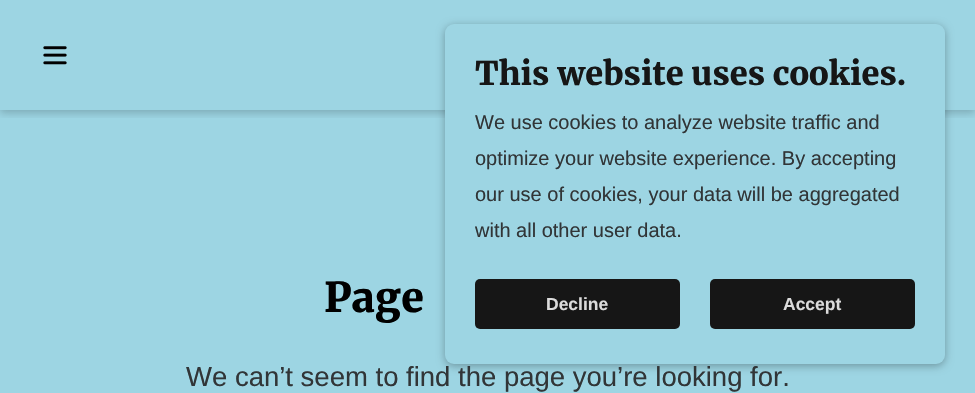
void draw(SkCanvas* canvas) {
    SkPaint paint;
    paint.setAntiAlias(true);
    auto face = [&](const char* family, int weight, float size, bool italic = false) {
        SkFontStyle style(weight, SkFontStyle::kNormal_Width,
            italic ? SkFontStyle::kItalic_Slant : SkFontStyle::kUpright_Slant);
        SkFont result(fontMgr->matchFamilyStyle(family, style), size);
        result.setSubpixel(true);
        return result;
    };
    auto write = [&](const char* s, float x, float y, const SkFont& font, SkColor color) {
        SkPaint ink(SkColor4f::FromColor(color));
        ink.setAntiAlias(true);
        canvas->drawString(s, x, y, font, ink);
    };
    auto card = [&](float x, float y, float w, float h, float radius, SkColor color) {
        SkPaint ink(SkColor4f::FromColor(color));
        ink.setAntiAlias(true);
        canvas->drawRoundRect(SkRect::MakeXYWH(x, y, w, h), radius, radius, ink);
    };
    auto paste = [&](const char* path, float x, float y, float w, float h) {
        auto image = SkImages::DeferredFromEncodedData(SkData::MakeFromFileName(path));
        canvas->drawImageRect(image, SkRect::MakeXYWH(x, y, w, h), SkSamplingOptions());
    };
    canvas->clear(SkColorSetRGB(157, 213, 227));
    canvas->save();
    canvas->clipRect(SkRect::MakeXYWH(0, 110, 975, 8));
    paint.setColor(SkColorSetARGB(51, 0, 0, 0));
    paint.setMaskFilter(SkMaskFilter::MakeBlur(kNormal_SkBlurStyle, 4));
    canvas->drawRect(SkRect::MakeXYWH(0, 3, 975, 110), paint);
    paint.setMaskFilter(nullptr);
    canvas->restore();
    paste("pic1.png", 43, 46, 24, 19);
    paint.setColor(SkColorSetARGB(77, 0, 0, 0));
    paint.setMaskFilter(SkMaskFilter::MakeBlur(kNormal_SkBlurStyle, 4));
    canvas->drawRoundRect(SkRect::MakeXYWH(445, 26, 500, 340), 9, 9, paint);
    paint.setMaskFilter(nullptr);
    card(445, 24, 500, 340, 9, SkColorSetRGB(157, 213, 227));
    auto kFont1 = face("Merriweather", 300, 32.5f);
    write("This website uses cookies.", 475, 85, kFont1, SkColorSetRGB(22, 22, 22));
    auto kFont2 = face("Liberation Sans", 400, 20);
    write("We use cookies to analyze website traffic and", 475, 129, kFont2, SkColorSetRGB(49, 53, 55));
    write("optimize your website experience. By accepting", 475, 165, kFont2, SkColorSetRGB(49, 53, 55));
    write("our use of cookies, your data will be aggregated", 475, 201, kFont2, SkColorSetRGB(49, 53, 55));
    write("with all other user data.", 475, 237, kFont2, SkColorSetRGB(49, 53, 55));
    card(475, 279, 205, 50, 5, SkColorSetRGB(22, 22, 22));
    auto kFont3 = face("Liberation Sans", 700, 17.5f);
    write("Decline", 546, 310, kFont3, SkColorSetRGB(219, 219, 219));
    card(710, 279, 205, 50, 5, SkColorSetRGB(22, 22, 22));
    write("Accept", 783, 310, kFont3, SkColorSetRGB(219, 219, 219));
    auto kFont4 = face("Merriweather", 300, 41);
    write("Page", 324, 312, kFont4, SK_ColorBLACK);
    auto kFont5 = face("Liberation Sans", 400, 27.5f);
    write("We can’t seem to find the page you’re looking for.", 186, 386, kFont5, SkColorSetRGB(49, 53, 55));
}
